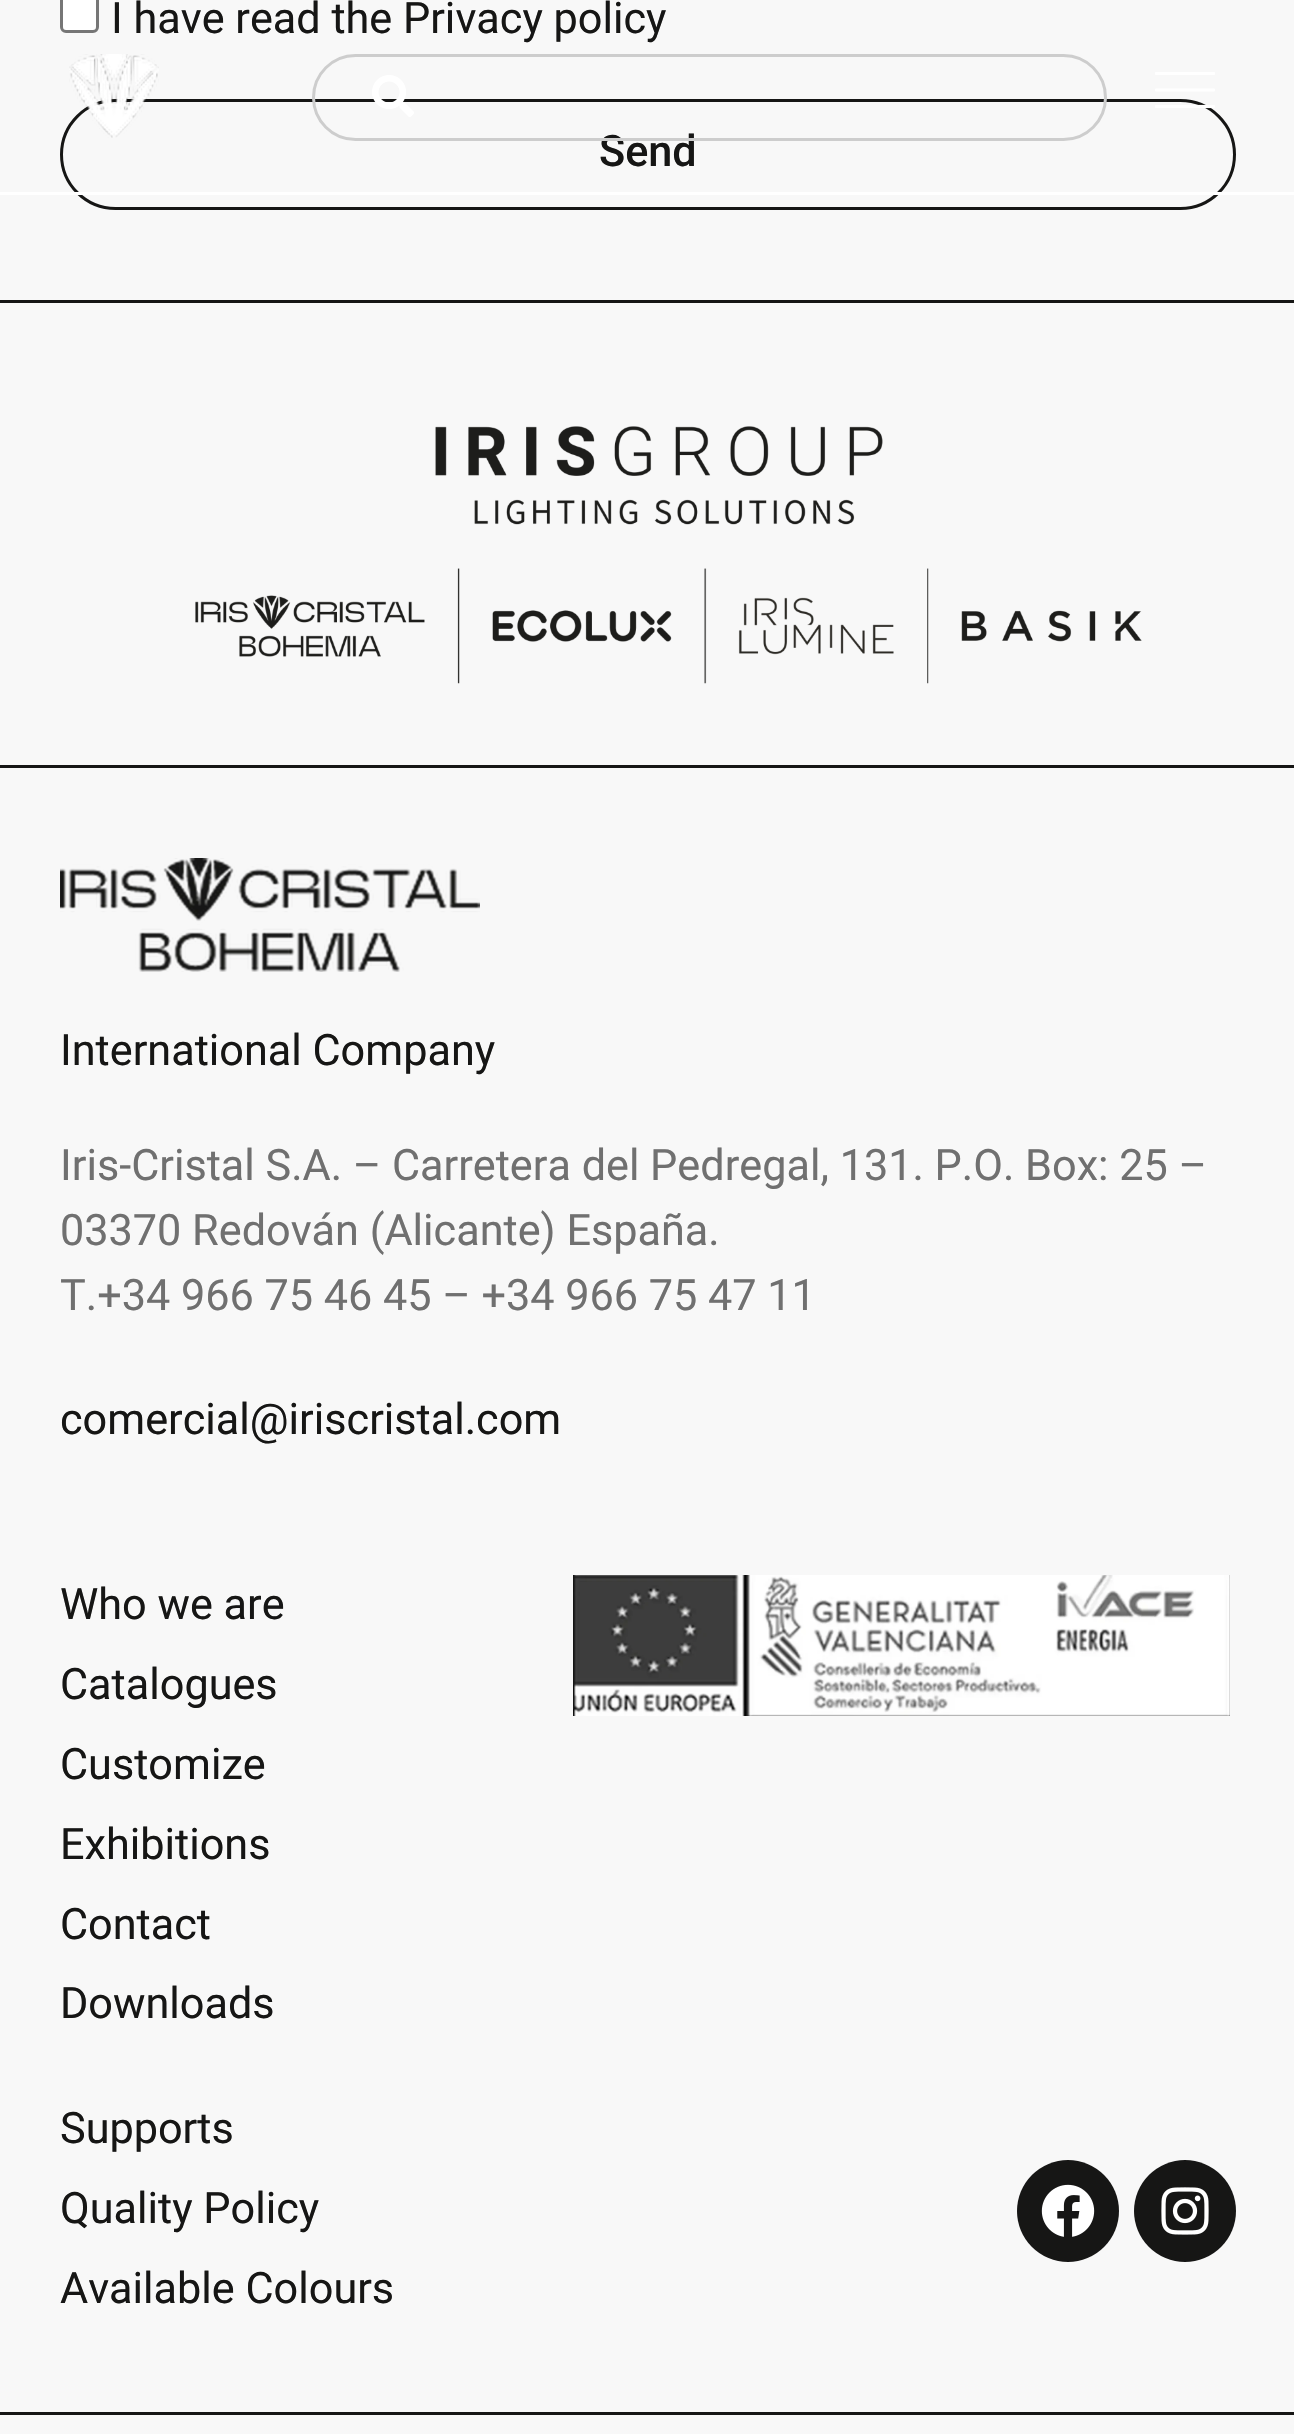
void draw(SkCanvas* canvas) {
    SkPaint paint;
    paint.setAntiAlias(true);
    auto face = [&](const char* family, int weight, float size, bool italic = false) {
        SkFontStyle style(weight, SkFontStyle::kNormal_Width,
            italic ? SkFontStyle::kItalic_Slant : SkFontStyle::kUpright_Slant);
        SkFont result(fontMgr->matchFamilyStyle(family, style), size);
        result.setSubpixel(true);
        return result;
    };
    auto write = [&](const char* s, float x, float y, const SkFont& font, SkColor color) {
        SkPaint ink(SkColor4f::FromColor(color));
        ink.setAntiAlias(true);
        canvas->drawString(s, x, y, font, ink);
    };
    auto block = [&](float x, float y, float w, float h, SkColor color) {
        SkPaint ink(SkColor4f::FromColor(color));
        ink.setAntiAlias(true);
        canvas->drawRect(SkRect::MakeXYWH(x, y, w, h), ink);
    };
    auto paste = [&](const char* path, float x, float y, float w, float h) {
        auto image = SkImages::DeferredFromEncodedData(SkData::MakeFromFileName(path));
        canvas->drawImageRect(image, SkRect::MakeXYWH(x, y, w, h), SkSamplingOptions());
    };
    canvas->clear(SkColorSetRGB(248, 248, 248));
    block(0, 300, 1294, 3, SkColorSetRGB(22, 22, 21));
    paint.setColor(SK_ColorWHITE);
    canvas->drawRoundRect(SkRect::MakeXYWH(61.5f, -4.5f, 36, 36), 4.5f, 4.5f, paint);
    paint.setStyle(SkPaint::kStroke_Style);
    paint.setStrokeWidth(3);
    paint.setColor(SkColorSetRGB(118, 118, 118));
    canvas->drawRoundRect(SkRect::MakeXYWH(61.5f, -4.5f, 36, 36), 4.5f, 4.5f, paint);
    auto kFont1 = face("Roboto", 400, 43.2f);
    write("I have read the Privacy policy", 111, 33, kFont1, SkColorSetRGB(22, 22, 21));
    paint.setColor(SkColorSetRGB(22, 22, 21));
    canvas->drawRoundRect(SkRect::MakeXYWH(61.5f, 100.5f, 1173, 108), 54, 54, paint);
    auto kFont2 = face("Roboto", 500, 43.2f);
    write("Send", 599, 166, kFont2, SkColorSetRGB(22, 22, 21));
    block(0, 765, 1294, 3, SkColorSetRGB(22, 22, 21));
    paste("pic1.png", 195, 426, 947, 258);
    block(0, 2412, 1294, 3, SkColorSetRGB(22, 22, 21));
    paste("pic2.png", 60, 858, 420, 114);
    write("International Company", 60, 1065, kFont1, SkColorSetRGB(22, 22, 21));
    write("Iris-Cristal S.A. – Carretera del Pedregal, 131. P.O. Box: 25 –", 60, 1180, kFont1, SkColorSetRGB(112, 112, 112));
    write("03370 Redován (Alicante) España.", 60, 1245, kFont1, SkColorSetRGB(112, 112, 112));
    write("T.+34 966 75 46 45 – +34 966 75 47 11", 60, 1310, kFont1, SkColorSetRGB(112, 112, 112));
    write("comercial@iriscristal.com", 60, 1434, kFont1, SkColorSetRGB(22, 22, 21));
    write("Who we are", 60, 1619, kFont1, SkColorSetRGB(22, 22, 21));
    write("Catalogues", 60, 1699, kFont1, SkColorSetRGB(22, 22, 21));
    write("Customize", 60, 1779, kFont1, SkColorSetRGB(22, 22, 21));
    write("Exhibitions", 60, 1859, kFont1, SkColorSetRGB(22, 22, 21));
    write("Contact", 60, 1939, kFont1, SkColorSetRGB(22, 22, 21));
    write("Downloads", 60, 2018, kFont1, SkColorSetRGB(22, 22, 21));
    paste("pic3.png", 573, 1575, 657, 141);
    write("Supports", 60, 2143, kFont1, SkColorSetRGB(22, 22, 21));
    write("Quality Policy", 60, 2223, kFont1, SkColorSetRGB(22, 22, 21));
    write("Available Colours", 60, 2303, kFont1, SkColorSetRGB(22, 22, 21));
    paint.setStyle(SkPaint::kFill_Style);
    canvas->drawCircle(1068, 2211, 51, paint);
    paste("pic4.png", 1041, 2184, 54, 53);
    canvas->drawCircle(1185, 2211, 51, paint);
    paste("pic5.png", 1161, 2187, 48, 48);
    block(0, 192, 1294, 3, SK_ColorWHITE);
    paste("pic6.png", 69, 54, 90, 84);
    paint.setStyle(SkPaint::kStroke_Style);
    paint.setColor(SkColorSetRGB(205, 205, 205));
    canvas->drawRoundRect(SkRect::MakeXYWH(313.5f, 55.5f, 792, 84), 42, 42, paint);
    paste("pic7.png", 372, 75, 42, 42);
    paste("pic8.png", 1155, 72, 60, 37);
}
